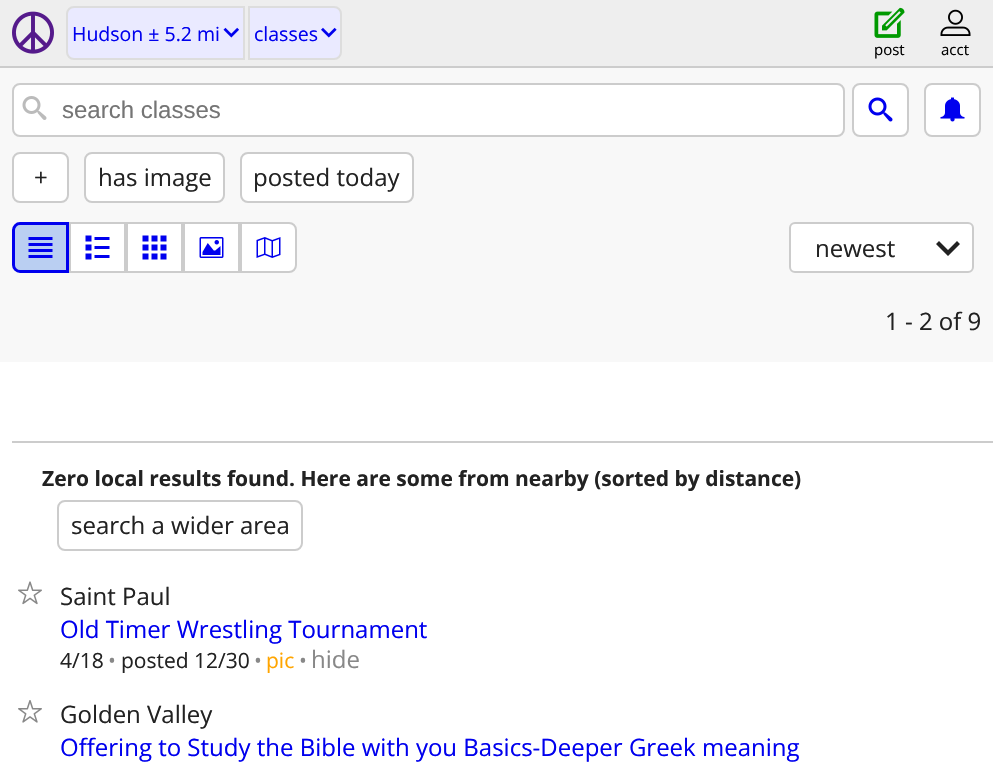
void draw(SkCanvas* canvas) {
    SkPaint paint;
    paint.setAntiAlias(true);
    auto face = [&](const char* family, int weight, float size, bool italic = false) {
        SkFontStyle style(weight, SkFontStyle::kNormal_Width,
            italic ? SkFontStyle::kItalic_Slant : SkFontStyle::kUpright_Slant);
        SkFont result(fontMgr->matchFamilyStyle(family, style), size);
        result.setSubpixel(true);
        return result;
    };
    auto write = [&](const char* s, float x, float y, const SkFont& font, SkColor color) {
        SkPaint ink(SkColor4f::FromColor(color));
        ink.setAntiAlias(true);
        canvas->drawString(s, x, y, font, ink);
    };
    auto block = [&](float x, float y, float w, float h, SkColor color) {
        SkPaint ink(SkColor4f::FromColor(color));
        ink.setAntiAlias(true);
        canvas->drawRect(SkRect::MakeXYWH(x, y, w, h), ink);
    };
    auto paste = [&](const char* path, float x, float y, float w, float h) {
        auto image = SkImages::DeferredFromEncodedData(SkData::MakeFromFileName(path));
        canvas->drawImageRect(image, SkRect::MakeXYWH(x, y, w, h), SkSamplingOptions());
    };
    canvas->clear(SK_ColorWHITE);
    block(0, 0, 993, 66, SkColorSetRGB(238, 238, 238));
    block(0, 66, 993, 2, SkColorSetRGB(204, 204, 204));
    paste("pic1.png", 12, 11, 42, 43);
    paint.setColor(SkColorSetRGB(234, 234, 255));
    canvas->drawPath(SkPathBuilder().moveTo(74, 7).lineTo(244, 7).lineTo(244, 59).lineTo(74, 59).cubicTo(70, 59, 67, 56, 67, 52).lineTo(67, 14).cubicTo(67, 10, 70, 7, 74, 7).close().detach(), paint);
    paint.setStyle(SkPaint::kStroke_Style);
    paint.setStrokeWidth(2);
    paint.setColor(SkColorSetRGB(221, 221, 221));
    canvas->drawPath(SkPathBuilder().moveTo(74, 7).lineTo(244, 7).lineTo(244, 59).lineTo(74, 59).cubicTo(70, 59, 67, 56, 67, 52).lineTo(67, 14).cubicTo(67, 10, 70, 7, 74, 7).close().detach(), paint);
    auto kFont1 = face("Open Sans", 400, 19.5f);
    write("Hudson ± 5.2 mi", 72, 41, kFont1, SkColorSetRGB(0, 0, 238));
    paste("pic2.png", 223, 27, 16, 11);
    paint.setStyle(SkPaint::kFill_Style);
    paint.setColor(SkColorSetRGB(234, 234, 255));
    canvas->drawPath(SkPathBuilder().moveTo(249, 7).lineTo(334, 7).cubicTo(338, 7, 341, 10, 341, 14).lineTo(341, 52).cubicTo(341, 56, 338, 59, 334, 59).lineTo(249, 59).close().detach(), paint);
    paint.setStyle(SkPaint::kStroke_Style);
    paint.setColor(SkColorSetRGB(221, 221, 221));
    canvas->drawPath(SkPathBuilder().moveTo(249, 7).lineTo(334, 7).cubicTo(338, 7, 341, 10, 341, 14).lineTo(341, 52).cubicTo(341, 56, 338, 59, 334, 59).lineTo(249, 59).close().detach(), paint);
    write("classes", 254, 41, kFont1, SkColorSetRGB(0, 0, 238));
    paste("pic3.png", 321, 27, 16, 11);
    paste("pic4.png", 874, 7, 31, 31);
    auto kFont2 = face("Open Sans", 400, 15);
    write("post", 874, 55, kFont2, SK_ColorBLACK);
    paste("pic5.png", 940, 9, 31, 27);
    write("acct", 941, 55, kFont2, SK_ColorBLACK);
    block(0, 68, 993, 294, SkColorSetRGB(248, 248, 248));
    paint.setStyle(SkPaint::kFill_Style);
    paint.setColor(SK_ColorWHITE);
    canvas->drawRoundRect(SkRect::MakeXYWH(13, 84, 831, 52), 7, 7, paint);
    paint.setStyle(SkPaint::kStroke_Style);
    paint.setColor(SkColorSetRGB(204, 204, 204));
    canvas->drawRoundRect(SkRect::MakeXYWH(13, 84, 831, 52), 7, 7, paint);
    paste("pic6.png", 22, 96, 25, 24);
    auto kFont3 = face("Liberation Sans", 400, 24);
    write("search classes", 62, 118, kFont3, SkColorSetRGB(117, 117, 117));
    paint.setStyle(SkPaint::kFill_Style);
    paint.setColor(SK_ColorWHITE);
    canvas->drawRoundRect(SkRect::MakeXYWH(853, 84, 55, 52), 7, 7, paint);
    paint.setStyle(SkPaint::kStroke_Style);
    paint.setColor(SkColorSetRGB(204, 204, 204));
    canvas->drawRoundRect(SkRect::MakeXYWH(853, 84, 55, 52), 7, 7, paint);
    paste("pic7.png", 868, 97, 25, 25);
    paint.setStyle(SkPaint::kFill_Style);
    paint.setColor(SK_ColorWHITE);
    canvas->drawRoundRect(SkRect::MakeXYWH(925, 84, 55, 52), 7, 7, paint);
    paint.setStyle(SkPaint::kStroke_Style);
    paint.setColor(SkColorSetRGB(204, 204, 204));
    canvas->drawRoundRect(SkRect::MakeXYWH(925, 84, 55, 52), 7, 7, paint);
    paste("pic8.png", 940, 97, 25, 25);
    paint.setStyle(SkPaint::kFill_Style);
    paint.setColor(SK_ColorWHITE);
    canvas->drawRoundRect(SkRect::MakeXYWH(13, 153, 55, 49), 7, 7, paint);
    paint.setStyle(SkPaint::kStroke_Style);
    paint.setColor(SkColorSetRGB(204, 204, 204));
    canvas->drawRoundRect(SkRect::MakeXYWH(13, 153, 55, 49), 7, 7, paint);
    auto kFont4 = face("Open Sans", 400, 24);
    write("+", 34, 186, kFont4, SkColorSetRGB(34, 34, 34));
    paint.setStyle(SkPaint::kFill_Style);
    paint.setColor(SK_ColorWHITE);
    canvas->drawRoundRect(SkRect::MakeXYWH(85, 153, 139, 49), 7, 7, paint);
    paint.setStyle(SkPaint::kStroke_Style);
    paint.setColor(SkColorSetRGB(204, 204, 204));
    canvas->drawRoundRect(SkRect::MakeXYWH(85, 153, 139, 49), 7, 7, paint);
    write("has image", 98, 186, kFont4, SkColorSetRGB(34, 34, 34));
    paint.setStyle(SkPaint::kFill_Style);
    paint.setColor(SK_ColorWHITE);
    canvas->drawRoundRect(SkRect::MakeXYWH(241, 153, 172, 49), 7, 7, paint);
    paint.setStyle(SkPaint::kStroke_Style);
    paint.setColor(SkColorSetRGB(204, 204, 204));
    canvas->drawRoundRect(SkRect::MakeXYWH(241, 153, 172, 49), 7, 7, paint);
    write("posted today", 253, 186, kFont4, SkColorSetRGB(34, 34, 34));
    paint.setStyle(SkPaint::kFill_Style);
    paint.setColor(SkColorSetRGB(186, 207, 242));
    canvas->drawPath(SkPathBuilder().moveTo(20, 223.5f).lineTo(67.5f, 223.5f).lineTo(67.5f, 271.5f).lineTo(20, 271.5f).cubicTo(16.5f, 271.5f, 13.5f, 268.5f, 13.5f, 265).lineTo(13.5f, 230).cubicTo(13.5f, 226.5f, 16.5f, 223.5f, 20, 223.5f).close().detach(), paint);
    paint.setStyle(SkPaint::kStroke_Style);
    paint.setStrokeWidth(3);
    paint.setColor(SkColorSetRGB(0, 0, 238));
    canvas->drawPath(SkPathBuilder().moveTo(20, 223.5f).lineTo(67.5f, 223.5f).lineTo(67.5f, 271.5f).lineTo(20, 271.5f).cubicTo(16.5f, 271.5f, 13.5f, 268.5f, 13.5f, 265).lineTo(13.5f, 230).cubicTo(13.5f, 226.5f, 16.5f, 223.5f, 20, 223.5f).close().detach(), paint);
    paste("pic9.png", 28, 237, 25, 21);
    paint.setStyle(SkPaint::kFill_Style);
    paint.setColor(SK_ColorWHITE);
    canvas->drawRect(SkRect::MakeXYWH(70, 223, 55, 49), paint);
    paint.setStyle(SkPaint::kStroke_Style);
    paint.setStrokeWidth(2);
    paint.setColor(SkColorSetRGB(204, 204, 204));
    canvas->drawRect(SkRect::MakeXYWH(70, 223, 55, 49), paint);
    paste("pic10.png", 85, 235, 25, 25);
    paint.setStyle(SkPaint::kFill_Style);
    paint.setColor(SK_ColorWHITE);
    canvas->drawRect(SkRect::MakeXYWH(127, 223, 55, 49), paint);
    paint.setStyle(SkPaint::kStroke_Style);
    paint.setColor(SkColorSetRGB(204, 204, 204));
    canvas->drawRect(SkRect::MakeXYWH(127, 223, 55, 49), paint);
    paste("pic11.png", 142, 235, 25, 25);
    paint.setStyle(SkPaint::kFill_Style);
    paint.setColor(SK_ColorWHITE);
    canvas->drawRect(SkRect::MakeXYWH(184, 223, 55, 49), paint);
    paint.setStyle(SkPaint::kStroke_Style);
    paint.setColor(SkColorSetRGB(204, 204, 204));
    canvas->drawRect(SkRect::MakeXYWH(184, 223, 55, 49), paint);
    paste("pic12.png", 199, 237, 25, 21);
    paint.setStyle(SkPaint::kFill_Style);
    paint.setColor(SK_ColorWHITE);
    canvas->drawPath(SkPathBuilder().moveTo(241, 223).lineTo(289, 223).cubicTo(293, 223, 296, 226, 296, 230).lineTo(296, 265).cubicTo(296, 269, 293, 272, 289, 272).lineTo(241, 272).close().detach(), paint);
    paint.setStyle(SkPaint::kStroke_Style);
    paint.setColor(SkColorSetRGB(204, 204, 204));
    canvas->drawPath(SkPathBuilder().moveTo(241, 223).lineTo(289, 223).cubicTo(293, 223, 296, 226, 296, 230).lineTo(296, 265).cubicTo(296, 269, 293, 272, 289, 272).lineTo(241, 272).close().detach(), paint);
    paste("pic13.png", 256, 237, 25, 21);
    paint.setStyle(SkPaint::kFill_Style);
    paint.setColor(SK_ColorWHITE);
    canvas->drawRoundRect(SkRect::MakeXYWH(790, 223, 183, 49), 5, 5, paint);
    paint.setStyle(SkPaint::kStroke_Style);
    paint.setColor(SkColorSetRGB(204, 204, 204));
    canvas->drawRoundRect(SkRect::MakeXYWH(790, 223, 183, 49), 5, 5, paint);
    write("newest", 815, 257, kFont4, SkColorSetRGB(34, 34, 34));
    paint.setStyle(SkPaint::kFill_Style);
    paint.setColor(SkColorSetRGB(34, 34, 34));
    canvas->drawPath(SkPathBuilder().moveTo(960, 244).lineTo(957, 241).lineTo(948, 250).lineTo(939, 241).lineTo(936, 244).lineTo(948, 256).close().detach(), paint);
    write("1 - 2 of 9", 885, 330, kFont4, SkColorSetRGB(34, 34, 34));
    block(12, 441, 981, 2, SkColorSetRGB(204, 204, 204));
    auto kFont5 = face("Open Sans", 700, 21);
    write("Zero local results found. Here are some from nearby (sorted by distance)", 42, 486, kFont5, SkColorSetRGB(34, 34, 34));
    paint.setStyle(SkPaint::kStroke_Style);
    paint.setColor(SkColorSetRGB(204, 204, 204));
    canvas->drawRoundRect(SkRect::MakeXYWH(58, 501, 244, 49), 7, 7, paint);
    write("search a wider area", 71, 534, kFont4, SkColorSetRGB(34, 34, 34));
    paste("pic14.png", 18, 581, 24, 24);
    write("Saint Paul", 60, 605, kFont4, SkColorSetRGB(34, 34, 34));
    write("Old Timer Wrestling Tournament", 60, 638, kFont4, SkColorSetRGB(0, 0, 238));
    auto kFont6 = face("Open Sans", 400, 21);
    write("4/18", 60, 668, kFont6, SkColorSetRGB(34, 34, 34));
    write("•", 108, 668, kFont6, SkColorSetRGB(136, 136, 136));
    write("posted 12/30", 121, 668, kFont6, SkColorSetRGB(34, 34, 34));
    write("•", 254, 668, kFont6, SkColorSetRGB(136, 136, 136));
    write("pic", 266, 668, kFont6, SkColorSetRGB(255, 165, 0));
    write("•", 299, 668, kFont6, SkColorSetRGB(136, 136, 136));
    write("hide", 311, 668, kFont4, SkColorSetRGB(136, 136, 136));
    paste("pic15.png", 18, 700, 24, 23);
    write("Golden Valley", 60, 723, kFont4, SkColorSetRGB(34, 34, 34));
    write("Offering to Study the Bible with you Basics-Deeper Greek meaning", 60, 756, kFont4, SkColorSetRGB(0, 0, 238));
}
